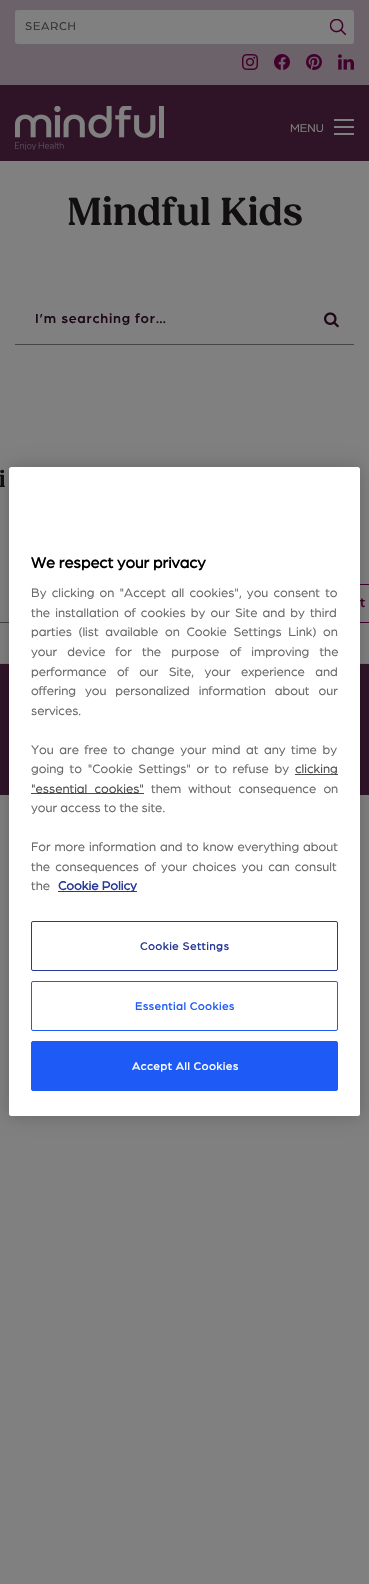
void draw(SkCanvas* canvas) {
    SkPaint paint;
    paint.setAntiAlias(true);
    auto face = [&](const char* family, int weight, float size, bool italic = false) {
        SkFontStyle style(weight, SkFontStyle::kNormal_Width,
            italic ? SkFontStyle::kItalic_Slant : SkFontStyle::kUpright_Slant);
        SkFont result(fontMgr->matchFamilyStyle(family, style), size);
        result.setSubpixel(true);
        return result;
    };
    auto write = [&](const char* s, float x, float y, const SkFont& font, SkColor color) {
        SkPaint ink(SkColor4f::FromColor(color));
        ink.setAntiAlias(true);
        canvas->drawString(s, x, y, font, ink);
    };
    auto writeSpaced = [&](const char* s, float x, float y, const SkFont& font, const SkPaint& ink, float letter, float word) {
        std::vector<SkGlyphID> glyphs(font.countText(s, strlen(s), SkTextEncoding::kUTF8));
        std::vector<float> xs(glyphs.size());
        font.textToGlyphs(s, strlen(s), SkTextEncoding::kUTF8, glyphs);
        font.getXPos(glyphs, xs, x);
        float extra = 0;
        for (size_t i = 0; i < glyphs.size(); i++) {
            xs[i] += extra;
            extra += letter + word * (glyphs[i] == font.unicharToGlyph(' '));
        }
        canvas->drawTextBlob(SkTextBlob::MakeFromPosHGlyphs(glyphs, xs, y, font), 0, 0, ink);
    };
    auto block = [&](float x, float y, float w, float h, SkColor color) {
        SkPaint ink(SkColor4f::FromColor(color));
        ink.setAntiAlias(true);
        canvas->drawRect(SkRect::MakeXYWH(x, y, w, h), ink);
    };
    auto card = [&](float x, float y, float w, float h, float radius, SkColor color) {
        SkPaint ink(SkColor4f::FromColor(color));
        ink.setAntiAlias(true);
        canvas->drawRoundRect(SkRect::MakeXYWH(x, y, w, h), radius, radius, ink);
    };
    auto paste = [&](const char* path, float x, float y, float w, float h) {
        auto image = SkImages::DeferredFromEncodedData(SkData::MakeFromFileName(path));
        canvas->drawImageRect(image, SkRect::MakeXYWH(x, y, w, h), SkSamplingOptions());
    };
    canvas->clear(SkColorSetRGB(128, 128, 128));
    block(0, 85, 369, 76, SkColorSetRGB(47, 20, 40));
    block(0, 0, 369, 85, SkColorSetRGB(107, 99, 105));
    card(15, 10, 339, 34, 3, SkColorSetRGB(128, 128, 128));
    auto kFont1 = face("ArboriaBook", 400, 12);
    paint.setColor(SkColorSetRGB(49, 49, 49));
    writeSpaced("SEARCH", 25, 30, kFont1, paint, 0.75f, 0);
    paste("pic1.png", 330, 19, 16, 16);
    paste("pic2.png", 242, 54, 16, 16);
    paste("pic3.png", 274, 54, 16, 16);
    paste("pic4.png", 306, 54, 16, 16);
    paste("pic5.png", 338, 54, 16, 16);
    paste("pic6.png", 15, 106, 149, 44);
    write("MENU", 290, 132, kFont1, SkColorSetRGB(128, 128, 128));
    block(334, 119, 20, 2, SkColorSetRGB(128, 128, 128));
    block(334, 126, 20, 2, SkColorSetRGB(128, 128, 128));
    block(334, 133, 20, 2, SkColorSetRGB(128, 128, 128));
    auto kFont2 = face("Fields", 600, 40);
    write("Mindful Kids", 67, 225, kFont2, SkColorSetRGB(17, 15, 16));
    block(15, 344, 339, 1, SkColorSetRGB(72, 68, 69));
    auto kFont3 = face("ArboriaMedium", 500, 14);
    paint.setColor(SkColorSetRGB(29, 7, 24));
    writeSpaced("I’m searching for…", 35, 323, kFont3, paint, 0.75f, 0);
    paste("pic7.png", 324, 312, 15, 16);
    auto kFont4 = face("Fields", 600, 24);
    write("i", -1, 487, kFont4, SkColorSetRGB(17, 15, 16));
    paint.setStyle(SkPaint::kStroke_Style);
    paint.setStrokeWidth(1);
    paint.setColor(SkColorSetRGB(67, 0, 44));
    canvas->drawRect(SkRect::MakeXYWH(298.5f, 584.5f, 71, 38), paint);
    write("t", 360, 607, kFont3, SkColorSetRGB(67, 0, 44));
    block(0, 622, 9, 1, SkColorSetRGB(72, 68, 69));
    block(0, 664, 369, 131, SkColorSetRGB(47, 20, 40));
    block(0, 663, 369, 1, SkColorSetRGB(120, 120, 120));
    paint.setStyle(SkPaint::kFill_Style);
    paint.setColor(SkColorSetARGB(51, 0, 0, 0));
    paint.setMaskFilter(SkMaskFilter::MakeBlur(kNormal_SkBlurStyle, 9));
    canvas->drawRoundRect(SkRect::MakeXYWH(9, 467, 351, 649), 2.5f, 2.5f, paint);
    paint.setMaskFilter(nullptr);
    card(9, 467, 351, 649, 2.5f, SK_ColorWHITE);
    auto kFont5 = face("ArboriaBook", 700, 16);
    write("We respect your privacy", 31, 568, kFont5, SK_ColorBLACK);
    auto kFont6 = face("ArboriaBook", 400, 13);
    paint.setColor(SkColorSetRGB(105, 105, 105));
    writeSpaced("By clicking on \"Accept all cookies\", you consent to", 31, 597, kFont6, paint, 0, 2);
    writeSpaced("the installation of cookies by our Site and by third", 31, 617, kFont6, paint, 0, 2);
    writeSpaced("parties (list available on Cookie Settings Link)", 31, 636, kFont6, paint, 0, 3.5f);
    write("on", 323, 636, kFont6, SkColorSetRGB(105, 105, 105));
    writeSpaced("your device for the purpose of improving the", 31, 656, kFont6, paint, 0, 7);
    writeSpaced("performance of our Site, your experience and", 31, 676, kFont6, paint, 0, 7.25f);
    writeSpaced("offering you personalized information about our", 31, 695, kFont6, paint, 0, 5.75f);
    write("services.", 31, 715, kFont6, SkColorSetRGB(105, 105, 105));
    writeSpaced("You are free to change your mind at any time by", 31, 754, kFont6, paint, 0, 2.4f);
    writeSpaced("going to \"Cookie Settings\" or to refuse by", 31, 773, kFont6, paint, 0, 2.5f);
    block(295, 774, 43, 1, SkColorSetRGB(74, 74, 74));
    write("clicking", 295, 773, kFont6, SkColorSetRGB(74, 74, 74));
    block(31, 793, 113, 1, SkColorSetRGB(74, 74, 74));
    paint.setColor(SkColorSetRGB(74, 74, 74));
    writeSpaced("\"essential cookies\"", 31, 793, kFont6, paint, 0, 4);
    paint.setColor(SkColorSetRGB(105, 105, 105));
    writeSpaced("them without consequence on", 151, 793, kFont6, paint, 0, 4);
    write("your access to the site.", 31, 812, kFont6, SkColorSetRGB(105, 105, 105));
    writeSpaced("For more information and to know everything about", 31, 851, kFont6, paint, 0, 0.75f);
    writeSpaced("the consequences of your choices you can consult", 31, 871, kFont6, paint, 0, 2);
    write("the", 31, 890, kFont6, SkColorSetRGB(105, 105, 105));
    block(58, 891, 79, 1, SkColorSetRGB(40, 56, 151));
    auto kFont7 = face("ArboriaBook", 700, 13);
    write("Cookie Policy", 58, 890, kFont7, SkColorSetRGB(40, 56, 151));
    paint.setStyle(SkPaint::kStroke_Style);
    paint.setColor(SkColorSetRGB(40, 56, 151));
    canvas->drawRoundRect(SkRect::MakeXYWH(31.5f, 921.5f, 306, 49), 1.5f, 1.5f, paint);
    auto kFont8 = face("ArboriaBook", 700, 11.4f);
    paint.setStyle(SkPaint::kFill_Style);
    writeSpaced("Cookie Settings", 140, 950, kFont8, paint, 0.6f, 0);
    paint.setStyle(SkPaint::kStroke_Style);
    paint.setColor(SkColorSetRGB(30, 91, 246));
    canvas->drawRoundRect(SkRect::MakeXYWH(31.5f, 981.5f, 306, 49), 1.5f, 1.5f, paint);
    paint.setStyle(SkPaint::kFill_Style);
    writeSpaced("Essential Cookies", 135, 1010, kFont8, paint, 0.6f, 0);
    canvas->drawRoundRect(SkRect::MakeXYWH(31.5f, 1041.5f, 306, 49), 1.5f, 1.5f, paint);
    paint.setStyle(SkPaint::kStroke_Style);
    canvas->drawRoundRect(SkRect::MakeXYWH(31.5f, 1041.5f, 306, 49), 1.5f, 1.5f, paint);
    paint.setStyle(SkPaint::kFill_Style);
    paint.setColor(SK_ColorWHITE);
    writeSpaced("Accept All Cookies", 132, 1070, kFont8, paint, 0.6f, 0);
}
